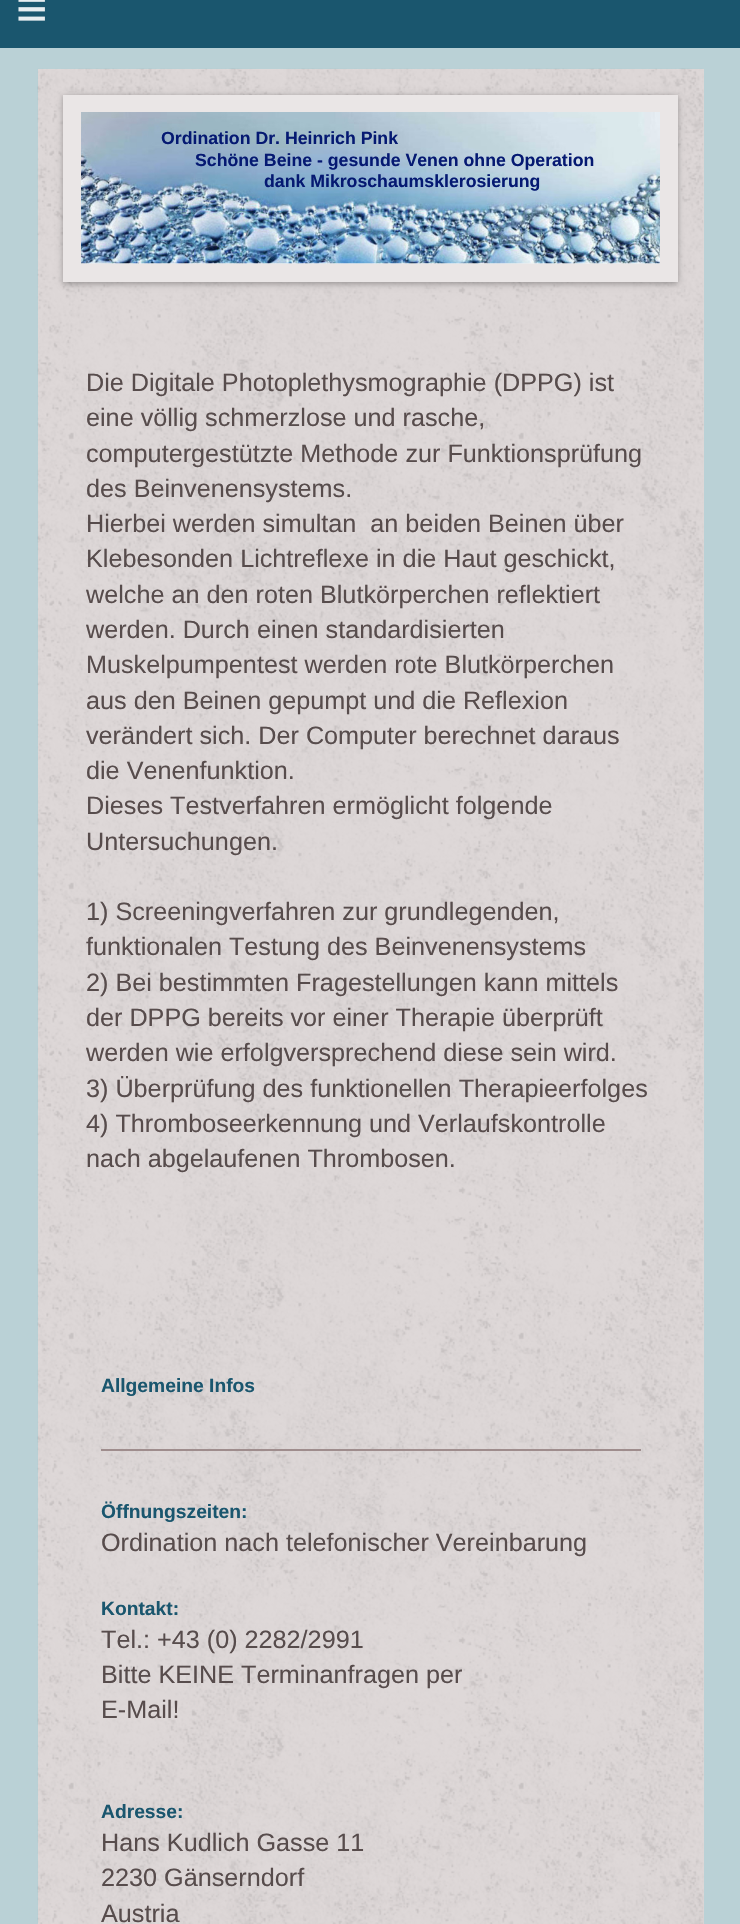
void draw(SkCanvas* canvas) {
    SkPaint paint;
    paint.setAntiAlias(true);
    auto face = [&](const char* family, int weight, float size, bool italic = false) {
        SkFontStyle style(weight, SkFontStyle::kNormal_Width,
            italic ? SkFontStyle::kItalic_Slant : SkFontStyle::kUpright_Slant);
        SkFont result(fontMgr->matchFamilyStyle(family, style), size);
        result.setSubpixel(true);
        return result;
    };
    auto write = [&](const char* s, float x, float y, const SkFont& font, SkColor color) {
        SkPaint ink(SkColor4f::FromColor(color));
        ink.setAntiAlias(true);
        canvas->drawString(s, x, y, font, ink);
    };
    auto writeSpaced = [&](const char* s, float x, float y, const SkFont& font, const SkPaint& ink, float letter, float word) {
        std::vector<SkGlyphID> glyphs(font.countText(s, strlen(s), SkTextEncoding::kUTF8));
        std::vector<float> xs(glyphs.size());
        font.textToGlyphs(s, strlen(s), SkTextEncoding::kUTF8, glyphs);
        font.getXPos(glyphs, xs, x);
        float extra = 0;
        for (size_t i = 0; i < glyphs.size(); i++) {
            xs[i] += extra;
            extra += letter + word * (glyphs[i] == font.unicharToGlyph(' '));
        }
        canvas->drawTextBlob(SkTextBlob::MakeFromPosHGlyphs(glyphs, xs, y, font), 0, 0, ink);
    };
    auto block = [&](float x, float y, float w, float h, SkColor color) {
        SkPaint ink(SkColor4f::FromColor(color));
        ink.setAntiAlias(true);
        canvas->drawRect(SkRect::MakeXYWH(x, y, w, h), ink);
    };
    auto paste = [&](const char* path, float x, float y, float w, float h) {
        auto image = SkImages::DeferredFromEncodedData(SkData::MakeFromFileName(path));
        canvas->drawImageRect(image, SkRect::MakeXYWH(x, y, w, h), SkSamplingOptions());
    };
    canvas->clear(SkColorSetRGB(186, 209, 214));
    block(0, 0, 740, 48, SkColorSetRGB(26, 86, 110));
    auto kFont1 = face("Liberation Sans", 400, 54);
    paint.setColor(SkColorSetRGB(232, 238, 241));
    writeSpaced("≡", 16, 27, kFont1, paint, 16, 0);
    block(38, 69, 666, 1855, SkColorSetRGB(222, 216, 216));
    paste("pic1.png", 37, 68, 667, 1856);
    paint.setColor(SkColorSetARGB(77, 0, 0, 0));
    paint.setMaskFilter(SkMaskFilter::MakeBlur(kNormal_SkBlurStyle, 3));
    canvas->drawRect(SkRect::MakeXYWH(63, 96, 615, 188), paint);
    paint.setMaskFilter(nullptr);
    paint.setStyle(SkPaint::kStroke_Style);
    paint.setStrokeWidth(18);
    paint.setColor(SkColorSetRGB(234, 230, 230));
    canvas->drawRect(SkRect::MakeXYWH(72, 104, 597, 169), paint);
    block(81, 263, 579, 1, SkColorSetRGB(238, 238, 238));
    paste("pic2.png", 81, 112, 579, 152);
    auto kFont2 = face("Liberation Sans", 700, 17.7f);
    write("Ordination Dr. Heinrich Pink", 161, 144, kFont2, SkColorSetRGB(5, 25, 114));
    write("Schöne Beine - gesunde Venen ohne Operation", 195, 166, kFont2, SkColorSetRGB(5, 25, 114));
    write("dank Mikroschaumsklerosierung", 264, 187, kFont2, SkColorSetRGB(5, 25, 114));
    auto kFont3 = face("Liberation Sans", 400, 25.2f);
    write("Die Digitale Photoplethysmographie (DPPG) ist", 86, 391, kFont3, SkColorSetRGB(87, 76, 76));
    write("eine völlig schmerzlose und rasche,", 86, 426, kFont3, SkColorSetRGB(87, 76, 76));
    write("computergestützte Methode zur Funktionsprüfung", 86, 462, kFont3, SkColorSetRGB(87, 76, 76));
    write("des Beinvenensystems.", 86, 497, kFont3, SkColorSetRGB(87, 76, 76));
    write("Hierbei werden simultan  an beiden Beinen über", 86, 532, kFont3, SkColorSetRGB(87, 76, 76));
    write("Klebesonden Lichtreflexe in die Haut geschickt,", 86, 567, kFont3, SkColorSetRGB(87, 76, 76));
    write("welche an den roten Blutkörperchen reflektiert", 86, 603, kFont3, SkColorSetRGB(87, 76, 76));
    write("werden. Durch einen standardisierten", 86, 638, kFont3, SkColorSetRGB(87, 76, 76));
    write("Muskelpumpentest werden rote Blutkörperchen", 86, 673, kFont3, SkColorSetRGB(87, 76, 76));
    write("aus den Beinen gepumpt und die Reflexion", 86, 709, kFont3, SkColorSetRGB(87, 76, 76));
    write("verändert sich. Der Computer berechnet daraus", 86, 744, kFont3, SkColorSetRGB(87, 76, 76));
    write("die Venenfunktion.", 86, 779, kFont3, SkColorSetRGB(87, 76, 76));
    write("Dieses Testverfahren ermöglicht folgende", 86, 814, kFont3, SkColorSetRGB(87, 76, 76));
    write("Untersuchungen.", 86, 850, kFont3, SkColorSetRGB(87, 76, 76));
    write("1) Screeningverfahren zur grundlegenden,", 86, 920, kFont3, SkColorSetRGB(87, 76, 76));
    write("funktionalen Testung des Beinvenensystems", 86, 955, kFont3, SkColorSetRGB(87, 76, 76));
    write("2) Bei bestimmten Fragestellungen kann mittels", 86, 991, kFont3, SkColorSetRGB(87, 76, 76));
    write("der DPPG bereits vor einer Therapie überprüft", 86, 1026, kFont3, SkColorSetRGB(87, 76, 76));
    write("werden wie erfolgversprechend diese sein wird.", 86, 1061, kFont3, SkColorSetRGB(87, 76, 76));
    write("3) Überprüfung des funktionellen Therapieerfolges", 86, 1097, kFont3, SkColorSetRGB(87, 76, 76));
    write("4) Thromboseerkennung und Verlaufskontrolle", 86, 1132, kFont3, SkColorSetRGB(87, 76, 76));
    write("nach abgelaufenen Thrombosen.", 86, 1167, kFont3, SkColorSetRGB(87, 76, 76));
    auto kFont4 = face("Liberation Sans", 700, 19.25f);
    write("Allgemeine Infos", 101, 1392, kFont4, SkColorSetRGB(26, 86, 110));
    block(101, 1449, 540, 2, SkColorSetRGB(159, 141, 141));
    write("Öffnungszeiten:", 101, 1518, kFont4, SkColorSetRGB(26, 86, 110));
    write("Ordination nach telefonischer Vereinbarung", 101, 1551, kFont3, SkColorSetRGB(87, 76, 76));
    write("Kontakt:", 101, 1615, kFont4, SkColorSetRGB(26, 86, 110));
    write("Tel.: +43 (0) 2282/2991", 101, 1648, kFont3, SkColorSetRGB(87, 76, 76));
    write("Bitte KEINE Terminanfragen per", 101, 1683, kFont3, SkColorSetRGB(87, 76, 76));
    write("E-Mail!", 101, 1718, kFont3, SkColorSetRGB(87, 76, 76));
    write("Adresse:", 101, 1818, kFont4, SkColorSetRGB(26, 86, 110));
    write("Hans Kudlich Gasse 11", 101, 1851, kFont3, SkColorSetRGB(87, 76, 76));
    write("2230 Gänserndorf", 101, 1886, kFont3, SkColorSetRGB(87, 76, 76));
    write("Austria", 101, 1922, kFont3, SkColorSetRGB(87, 76, 76));
}
